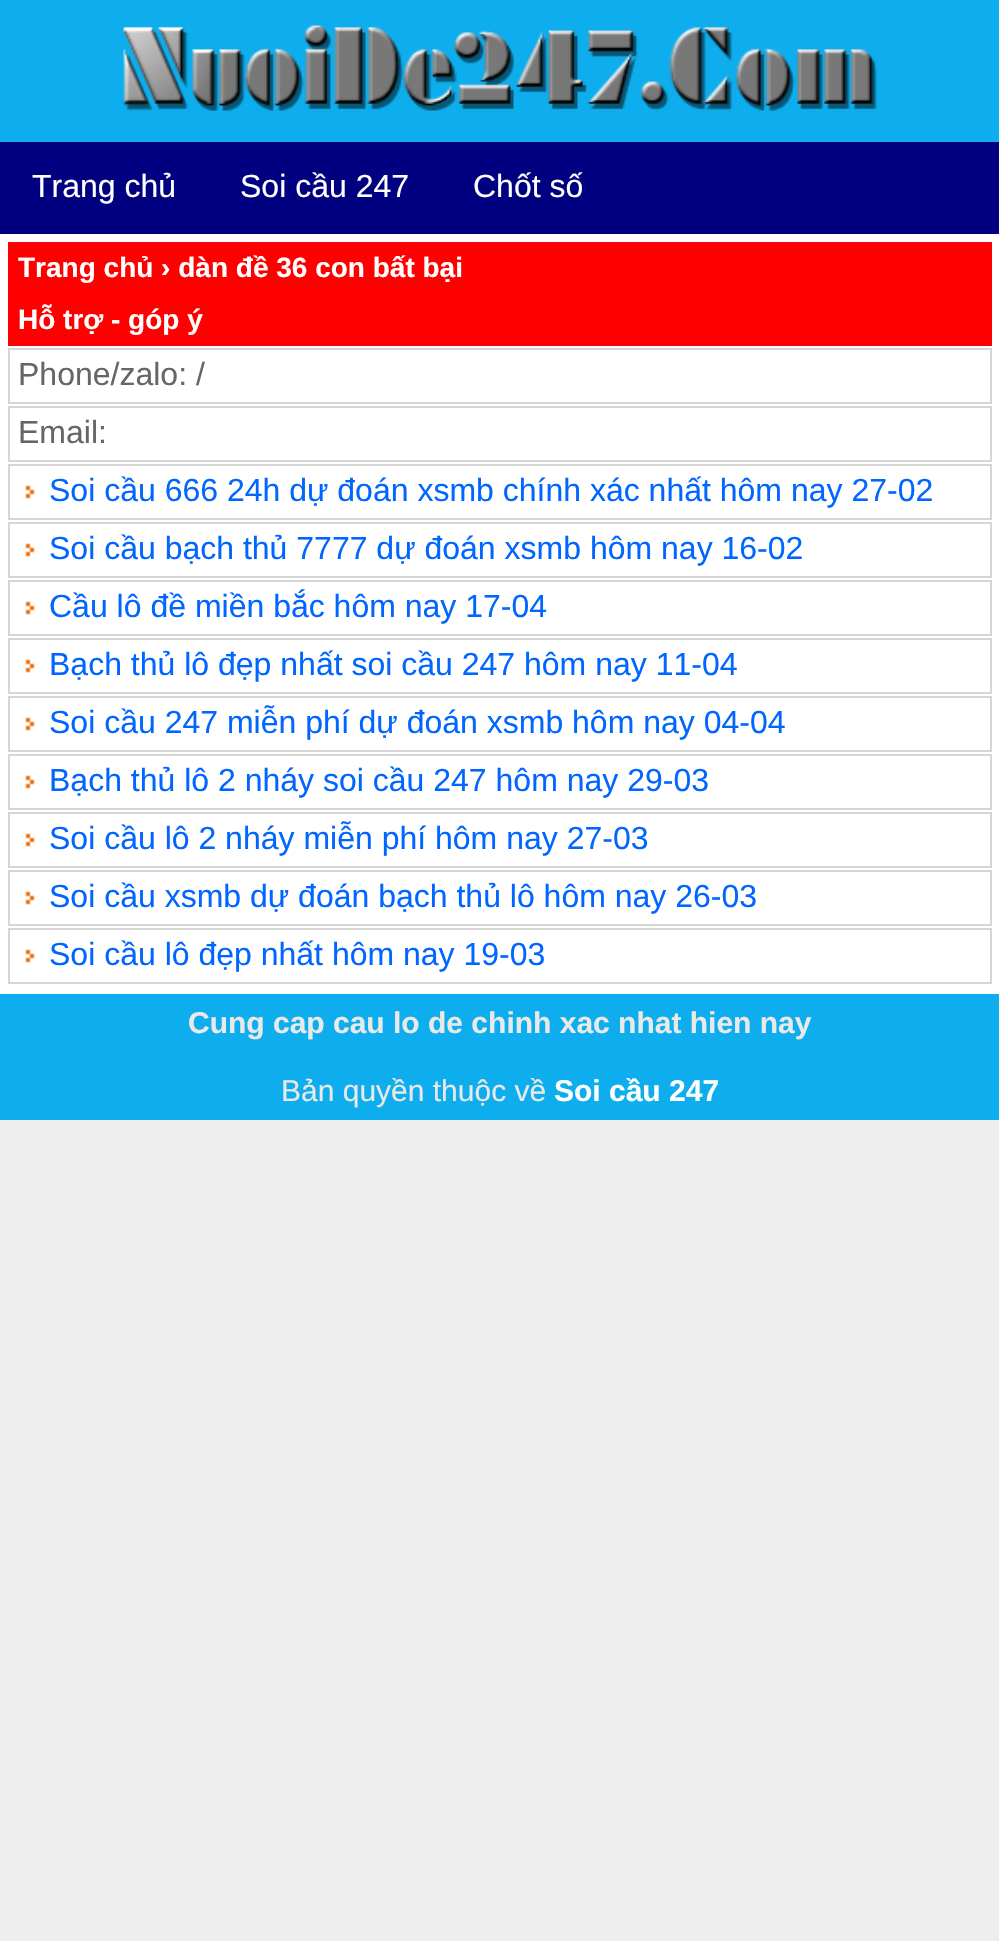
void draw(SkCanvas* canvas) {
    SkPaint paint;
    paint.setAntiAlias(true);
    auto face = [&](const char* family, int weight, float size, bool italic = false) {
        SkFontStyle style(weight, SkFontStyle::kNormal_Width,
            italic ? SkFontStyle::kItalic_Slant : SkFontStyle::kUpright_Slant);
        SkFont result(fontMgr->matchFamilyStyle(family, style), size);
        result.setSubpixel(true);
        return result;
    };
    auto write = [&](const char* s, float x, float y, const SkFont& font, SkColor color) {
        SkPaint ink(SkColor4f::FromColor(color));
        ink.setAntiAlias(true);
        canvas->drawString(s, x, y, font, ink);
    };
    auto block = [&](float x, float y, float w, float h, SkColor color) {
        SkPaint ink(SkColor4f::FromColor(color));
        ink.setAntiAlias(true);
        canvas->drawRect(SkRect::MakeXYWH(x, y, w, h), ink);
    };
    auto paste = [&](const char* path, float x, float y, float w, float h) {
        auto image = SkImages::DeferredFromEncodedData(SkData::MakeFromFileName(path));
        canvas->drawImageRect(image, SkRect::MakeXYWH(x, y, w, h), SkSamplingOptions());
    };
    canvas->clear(SkColorSetRGB(238, 238, 238));
    block(0, 0, 999, 142, SkColorSetRGB(14, 173, 237));
    paste("pic1.png", 123, 25, 754, 86);
    block(0, 142, 999, 92, SkColorSetRGB(0, 0, 128));
    auto kFont1 = face("Liberation Sans", 400, 32);
    write("Trang chủ", 32, 197, kFont1, SK_ColorWHITE);
    write("Soi cầu 247", 240, 197, kFont1, SK_ColorWHITE);
    write("Chốt số", 473, 197, kFont1, SK_ColorWHITE);
    block(0, 234, 999, 760, SK_ColorWHITE);
    block(8, 242, 984, 104, SkColorSetRGB(255, 0, 0));
    auto kFont2 = face("Liberation Sans", 700, 28);
    write("Trang chủ › dàn đề 36 con bất bại", 18, 277, kFont2, SK_ColorWHITE);
    write("Hỗ trợ - góp ý", 18, 329, kFont2, SK_ColorWHITE);
    paint.setStyle(SkPaint::kStroke_Style);
    paint.setStrokeWidth(2);
    paint.setColor(SkColorSetRGB(213, 213, 213));
    canvas->drawRect(SkRect::MakeXYWH(9, 349, 982, 54), paint);
    write("Phone/zalo: /", 18, 385, kFont1, SkColorSetRGB(102, 102, 102));
    canvas->drawRect(SkRect::MakeXYWH(9, 407, 982, 54), paint);
    write("Email:", 18, 443, kFont1, SkColorSetRGB(102, 102, 102));
    canvas->drawRect(SkRect::MakeXYWH(9, 465, 982, 54), paint);
    paste("pic2.png", 25, 485, 10, 14);
    write("Soi cầu 666 24h dự đoán xsmb chính xác nhất hôm nay 27-02", 49, 501, kFont1, SkColorSetRGB(0, 102, 255));
    canvas->drawRect(SkRect::MakeXYWH(9, 523, 982, 54), paint);
    paste("pic2.png", 25, 543, 10, 14);
    write("Soi cầu bạch thủ 7777 dự đoán xsmb hôm nay 16-02", 49, 559, kFont1, SkColorSetRGB(0, 102, 255));
    canvas->drawRect(SkRect::MakeXYWH(9, 581, 982, 54), paint);
    paste("pic2.png", 25, 601, 10, 14);
    write("Cầu lô đề miền bắc hôm nay 17-04", 49, 617, kFont1, SkColorSetRGB(0, 102, 255));
    canvas->drawRect(SkRect::MakeXYWH(9, 639, 982, 54), paint);
    paste("pic2.png", 25, 659, 10, 14);
    write("Bạch thủ lô đẹp nhất soi cầu 247 hôm nay 11-04", 49, 675, kFont1, SkColorSetRGB(0, 102, 255));
    canvas->drawRect(SkRect::MakeXYWH(9, 697, 982, 54), paint);
    paste("pic2.png", 25, 717, 10, 14);
    write("Soi cầu 247 miễn phí dự đoán xsmb hôm nay 04-04", 49, 733, kFont1, SkColorSetRGB(0, 102, 255));
    canvas->drawRect(SkRect::MakeXYWH(9, 755, 982, 54), paint);
    paste("pic2.png", 25, 775, 10, 14);
    write("Bạch thủ lô 2 nháy soi cầu 247 hôm nay 29-03", 49, 791, kFont1, SkColorSetRGB(0, 102, 255));
    canvas->drawRect(SkRect::MakeXYWH(9, 813, 982, 54), paint);
    paste("pic2.png", 25, 833, 10, 14);
    write("Soi cầu lô 2 nháy miễn phí hôm nay 27-03", 49, 849, kFont1, SkColorSetRGB(0, 102, 255));
    canvas->drawRect(SkRect::MakeXYWH(9, 871, 982, 54), paint);
    paste("pic2.png", 25, 891, 10, 14);
    write("Soi cầu xsmb dự đoán bạch thủ lô hôm nay 26-03", 49, 907, kFont1, SkColorSetRGB(0, 102, 255));
    canvas->drawRect(SkRect::MakeXYWH(9, 929, 982, 54), paint);
    paste("pic2.png", 25, 949, 10, 14);
    write("Soi cầu lô đẹp nhất hôm nay 19-03", 49, 965, kFont1, SkColorSetRGB(0, 102, 255));
    block(0, 994, 999, 126, SkColorSetRGB(14, 173, 237));
    auto kFont3 = face("Liberation Sans", 700, 30);
    write("Cung cap cau lo de chinh xac nhat hien nay", 188, 1033, kFont3, SkColorSetRGB(233, 233, 233));
    auto kFont4 = face("Liberation Sans", 400, 30);
    write("Bản quyền thuộc về", 281, 1101, kFont4, SkColorSetRGB(233, 233, 233));
    write("Soi cầu 247", 554, 1101, kFont3, SK_ColorWHITE);
}
